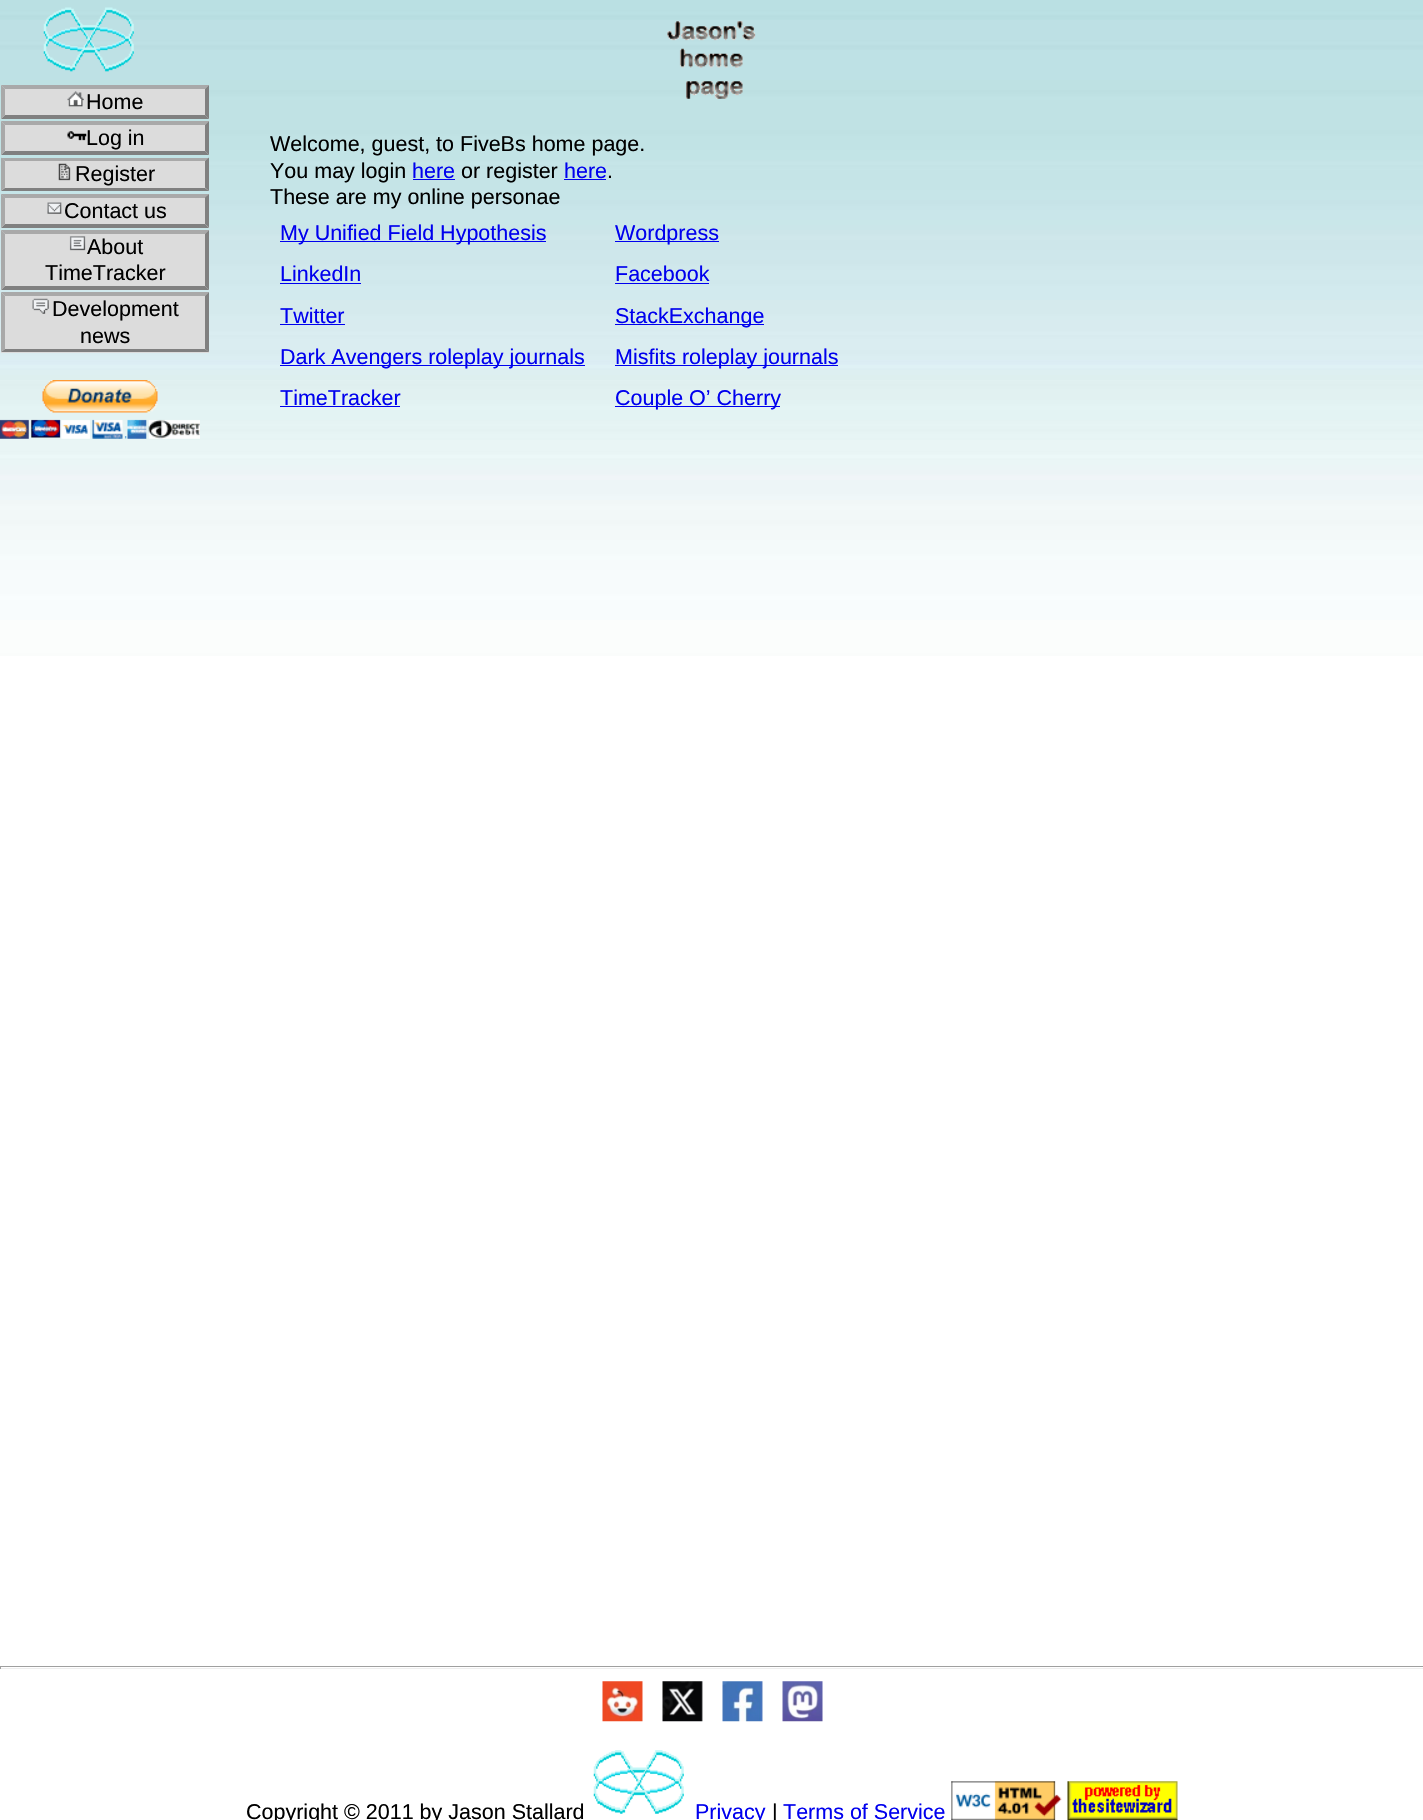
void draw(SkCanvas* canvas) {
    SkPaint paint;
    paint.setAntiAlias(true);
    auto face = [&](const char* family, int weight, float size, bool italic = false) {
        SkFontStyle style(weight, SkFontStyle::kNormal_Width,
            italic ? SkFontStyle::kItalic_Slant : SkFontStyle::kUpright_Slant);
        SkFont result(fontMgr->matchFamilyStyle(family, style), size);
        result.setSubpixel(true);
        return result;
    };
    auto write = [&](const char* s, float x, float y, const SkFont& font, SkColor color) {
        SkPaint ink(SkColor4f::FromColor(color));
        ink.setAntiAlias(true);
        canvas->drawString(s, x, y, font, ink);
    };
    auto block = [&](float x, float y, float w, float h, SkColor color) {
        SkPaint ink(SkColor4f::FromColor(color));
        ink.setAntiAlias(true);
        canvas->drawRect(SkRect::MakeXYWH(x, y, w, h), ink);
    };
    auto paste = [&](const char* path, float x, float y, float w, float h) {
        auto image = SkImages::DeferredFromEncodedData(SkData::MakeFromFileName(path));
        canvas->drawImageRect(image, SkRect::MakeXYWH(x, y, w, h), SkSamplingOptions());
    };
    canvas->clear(SK_ColorWHITE);
    paste("pic1.png", 0, 0, 1423, 656);
    paste("pic2.png", 667, 21, 89, 78);
    paste("pic3.png", 43, 7, 91, 65);
    block(1, 85, 208, 34, SkColorSetRGB(220, 220, 220));
    paint.setColor(SkColorSetRGB(169, 169, 169));
    canvas->drawPath(SkPathBuilder().moveTo(1, 85).lineTo(209, 85).lineTo(205, 89).lineTo(5, 89).close().detach(), paint);
    paint.setColor(SkColorSetRGB(128, 128, 128));
    canvas->drawPath(SkPathBuilder().moveTo(209, 85).lineTo(209, 119).lineTo(205, 115).lineTo(205, 89).close().detach(), paint);
    canvas->drawPath(SkPathBuilder().moveTo(209, 119).lineTo(1, 119).lineTo(5, 115).lineTo(205, 115).close().detach(), paint);
    paint.setColor(SkColorSetRGB(169, 169, 169));
    canvas->drawPath(SkPathBuilder().moveTo(1, 119).lineTo(1, 85).lineTo(5, 89).lineTo(5, 115).close().detach(), paint);
    paste("pic4.png", 67, 91, 17, 16);
    auto kFont1 = face("Liberation Sans", 400, 21.5f);
    write("Home", 86, 109, kFont1, SK_ColorBLACK);
    block(1, 121, 208, 34, SkColorSetRGB(220, 220, 220));
    canvas->drawPath(SkPathBuilder().moveTo(1, 121).lineTo(209, 121).lineTo(205, 125).lineTo(5, 125).close().detach(), paint);
    paint.setColor(SkColorSetRGB(128, 128, 128));
    canvas->drawPath(SkPathBuilder().moveTo(209, 121).lineTo(209, 155).lineTo(205, 151).lineTo(205, 125).close().detach(), paint);
    canvas->drawPath(SkPathBuilder().moveTo(209, 155).lineTo(1, 155).lineTo(5, 151).lineTo(205, 151).close().detach(), paint);
    paint.setColor(SkColorSetRGB(169, 169, 169));
    canvas->drawPath(SkPathBuilder().moveTo(1, 155).lineTo(1, 121).lineTo(5, 125).lineTo(5, 151).close().detach(), paint);
    paste("pic5.png", 67, 131, 20, 10);
    write("Log in", 86, 145, kFont1, SK_ColorBLACK);
    block(1, 158, 208, 33, SkColorSetRGB(220, 220, 220));
    canvas->drawPath(SkPathBuilder().moveTo(1, 158).lineTo(209, 158).lineTo(205, 161).lineTo(5, 161).close().detach(), paint);
    paint.setColor(SkColorSetRGB(128, 128, 128));
    canvas->drawPath(SkPathBuilder().moveTo(209, 157.5f).lineTo(209, 191).lineTo(205, 187.5f).lineTo(205, 161).close().detach(), paint);
    canvas->drawPath(SkPathBuilder().moveTo(209, 191).lineTo(1, 191).lineTo(5, 188).lineTo(205, 188).close().detach(), paint);
    paint.setColor(SkColorSetRGB(169, 169, 169));
    canvas->drawPath(SkPathBuilder().moveTo(1, 191).lineTo(1, 157.5f).lineTo(5, 161).lineTo(5, 187.5f).close().detach(), paint);
    paste("pic6.png", 58, 163, 13, 18);
    write("Register", 75, 181, kFont1, SK_ColorBLACK);
    block(1, 194, 208, 34, SkColorSetRGB(220, 220, 220));
    canvas->drawPath(SkPathBuilder().moveTo(1, 194).lineTo(209, 194).lineTo(205, 198).lineTo(5, 198).close().detach(), paint);
    paint.setColor(SkColorSetRGB(128, 128, 128));
    canvas->drawPath(SkPathBuilder().moveTo(209, 194).lineTo(209, 227.5f).lineTo(205, 224).lineTo(205, 197.5f).close().detach(), paint);
    canvas->drawPath(SkPathBuilder().moveTo(209, 228).lineTo(1, 228).lineTo(5, 224).lineTo(205, 224).close().detach(), paint);
    paint.setColor(SkColorSetRGB(169, 169, 169));
    canvas->drawPath(SkPathBuilder().moveTo(1, 227.5f).lineTo(1, 194).lineTo(5, 197.5f).lineTo(5, 224).close().detach(), paint);
    paste("pic7.png", 47, 202, 15, 12);
    write("Contact us", 64, 218, kFont1, SK_ColorBLACK);
    block(1, 230, 208, 60, SkColorSetRGB(220, 220, 220));
    canvas->drawPath(SkPathBuilder().moveTo(1, 230).lineTo(209, 230).lineTo(205, 234).lineTo(5, 234).close().detach(), paint);
    paint.setColor(SkColorSetRGB(128, 128, 128));
    canvas->drawPath(SkPathBuilder().moveTo(209, 230).lineTo(209, 290).lineTo(205, 286).lineTo(205, 234).close().detach(), paint);
    canvas->drawPath(SkPathBuilder().moveTo(209, 290).lineTo(1, 290).lineTo(5, 286).lineTo(205, 286).close().detach(), paint);
    paint.setColor(SkColorSetRGB(169, 169, 169));
    canvas->drawPath(SkPathBuilder().moveTo(1, 290).lineTo(1, 230).lineTo(5, 234).lineTo(5, 286).close().detach(), paint);
    paste("pic8.png", 69, 236, 17, 15);
    write("About", 87, 254, kFont1, SK_ColorBLACK);
    write("TimeTracker", 45, 280, kFont1, SK_ColorBLACK);
    block(1, 293, 208, 60, SkColorSetRGB(220, 220, 220));
    canvas->drawPath(SkPathBuilder().moveTo(1, 292).lineTo(209, 292).lineTo(205, 296).lineTo(5, 296).close().detach(), paint);
    paint.setColor(SkColorSetRGB(128, 128, 128));
    canvas->drawPath(SkPathBuilder().moveTo(209, 292).lineTo(209, 352).lineTo(205, 349).lineTo(205, 296).close().detach(), paint);
    canvas->drawPath(SkPathBuilder().moveTo(209, 352).lineTo(1, 352).lineTo(5, 349).lineTo(205, 349).close().detach(), paint);
    paint.setColor(SkColorSetRGB(169, 169, 169));
    canvas->drawPath(SkPathBuilder().moveTo(1, 352).lineTo(1, 292).lineTo(5, 296).lineTo(5, 349).close().detach(), paint);
    paste("pic9.png", 32, 298, 17, 16);
    write("Development", 52, 316, kFont1, SK_ColorBLACK);
    write("news", 80, 343, kFont1, SK_ColorBLACK);
    paste("pic10.png", 0, 380, 200, 59);
    write("Welcome, guest, to FiveBs home page.", 270, 151, kFont1, SK_ColorBLACK);
    write("You may login", 270, 178, kFont1, SK_ColorBLACK);
    write("here", 412, 178, kFont1, SkColorSetRGB(0, 0, 238));
    block(413, 179, 42, 1, SkColorSetRGB(0, 0, 238));
    write("or register", 461, 178, kFont1, SK_ColorBLACK);
    write("here", 564, 178, kFont1, SkColorSetRGB(0, 0, 238));
    block(564, 179, 42, 1, SkColorSetRGB(0, 0, 238));
    write(".", 607, 178, kFont1, SK_ColorBLACK);
    write("These are my online personae", 270, 204, kFont1, SK_ColorBLACK);
    block(280, 241, 266, 1, SkColorSetRGB(0, 0, 238));
    write("My Unified Field Hypothesis", 280, 240, kFont1, SkColorSetRGB(0, 0, 238));
    block(615, 241, 104, 1, SkColorSetRGB(0, 0, 238));
    write("Wordpress", 615, 240, kFont1, SkColorSetRGB(0, 0, 238));
    write("LinkedIn", 280, 281, kFont1, SkColorSetRGB(0, 0, 238));
    block(280, 283, 81, 1, SkColorSetRGB(0, 0, 238));
    write("Facebook", 615, 281, kFont1, SkColorSetRGB(0, 0, 238));
    block(615, 283, 94, 1, SkColorSetRGB(0, 0, 238));
    write("Twitter", 280, 323, kFont1, SkColorSetRGB(0, 0, 238));
    block(280, 324, 65, 1, SkColorSetRGB(0, 0, 238));
    block(615, 324, 149, 1, SkColorSetRGB(0, 0, 238));
    write("StackExchange", 615, 323, kFont1, SkColorSetRGB(0, 0, 238));
    block(280, 365, 305, 1, SkColorSetRGB(0, 0, 238));
    write("Dark Avengers roleplay journals", 280, 364, kFont1, SkColorSetRGB(0, 0, 238));
    block(615, 365, 223, 1, SkColorSetRGB(0, 0, 238));
    write("Misfits roleplay journals", 615, 364, kFont1, SkColorSetRGB(0, 0, 238));
    write("TimeTracker", 280, 405, kFont1, SkColorSetRGB(0, 0, 238));
    block(280, 406, 120, 1, SkColorSetRGB(0, 0, 238));
    block(615, 406, 165, 1, SkColorSetRGB(0, 0, 238));
    write("Couple O’ Cherry", 615, 405, kFont1, SkColorSetRGB(0, 0, 238));
    block(0, 1666, 1423, 1, SkColorSetRGB(159, 159, 159));
    block(0, 1668, 1423, 1, SkColorSetRGB(238, 238, 238));
    block(0, 1666, 1, 3, SkColorSetRGB(159, 159, 159));
    paste("pic11.png", 602, 1681, 41, 41);
    paste("pic12.png", 662, 1681, 41, 41);
    paste("pic13.png", 722, 1681, 41, 41);
    paste("pic14.png", 782, 1681, 41, 41);
    write("Copyright © 2011 by Jason Stallard", 246, 1819, kFont1, SK_ColorBLACK);
    paste("pic15.png", 593, 1750, 91, 64);
    write("Privacy", 695, 1819, kFont1, SkColorSetRGB(0, 0, 238));
    write("|", 772, 1819, kFont1, SK_ColorBLACK);
    write("Terms of Service", 783, 1819, kFont1, SkColorSetRGB(0, 0, 238));
    paste("pic16.png", 951, 1781, 111, 39);
    paste("pic17.png", 1067, 1781, 111, 39);
}
